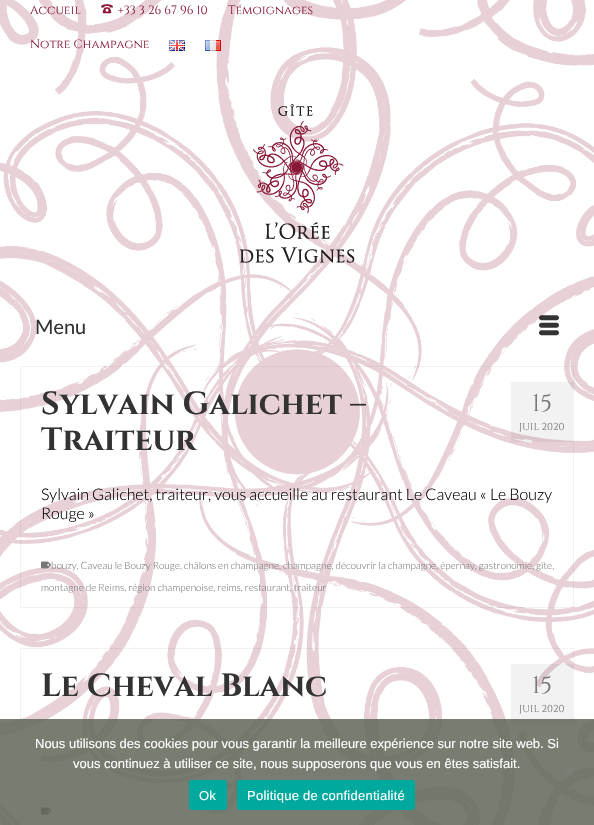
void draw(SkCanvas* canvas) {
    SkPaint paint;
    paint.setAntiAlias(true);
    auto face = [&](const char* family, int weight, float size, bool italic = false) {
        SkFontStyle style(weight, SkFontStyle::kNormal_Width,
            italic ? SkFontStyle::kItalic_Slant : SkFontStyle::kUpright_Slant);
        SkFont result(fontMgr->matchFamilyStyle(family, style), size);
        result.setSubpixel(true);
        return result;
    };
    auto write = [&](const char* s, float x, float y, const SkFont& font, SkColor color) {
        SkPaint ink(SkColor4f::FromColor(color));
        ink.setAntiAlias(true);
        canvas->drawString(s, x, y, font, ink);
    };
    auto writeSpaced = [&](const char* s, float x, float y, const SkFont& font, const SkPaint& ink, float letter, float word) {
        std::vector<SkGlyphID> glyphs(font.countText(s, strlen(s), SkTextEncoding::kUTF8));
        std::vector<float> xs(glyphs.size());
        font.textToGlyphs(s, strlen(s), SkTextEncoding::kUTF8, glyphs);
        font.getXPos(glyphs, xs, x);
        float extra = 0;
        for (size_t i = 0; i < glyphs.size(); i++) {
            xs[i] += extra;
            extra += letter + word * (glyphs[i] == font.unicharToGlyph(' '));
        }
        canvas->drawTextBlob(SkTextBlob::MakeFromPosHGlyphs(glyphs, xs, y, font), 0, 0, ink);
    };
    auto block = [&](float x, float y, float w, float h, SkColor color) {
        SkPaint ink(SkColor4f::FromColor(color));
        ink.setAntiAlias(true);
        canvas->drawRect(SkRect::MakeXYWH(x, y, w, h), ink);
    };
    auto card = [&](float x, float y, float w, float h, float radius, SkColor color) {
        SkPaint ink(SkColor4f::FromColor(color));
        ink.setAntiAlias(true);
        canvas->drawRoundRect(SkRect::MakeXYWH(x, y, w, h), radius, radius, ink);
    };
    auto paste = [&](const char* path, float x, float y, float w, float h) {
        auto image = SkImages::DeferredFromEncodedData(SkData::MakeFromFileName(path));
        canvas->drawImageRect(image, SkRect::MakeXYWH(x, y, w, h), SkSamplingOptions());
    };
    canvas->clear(SK_ColorWHITE);
    paste("pic1.png", 0, 0, 594, 825);
    auto kFont1 = face("Cinzel", 400, 12);
    write("Accueil", 30, 14, kFont1, SkColorSetRGB(137, 23, 53));
    paste("pic2.png", 101, 4, 12, 10);
    write("+33 3 26 67 96 10", 118, 14, kFont1, SkColorSetRGB(137, 23, 53));
    write("Témoignages", 228, 14, kFont1, SkColorSetRGB(137, 23, 53));
    write("Notre Champagne", 30, 48, kFont1, SkColorSetRGB(137, 23, 53));
    paste("pic3.png", 169, 40, 16, 11);
    paste("pic4.png", 205, 40, 16, 11);
    paste("pic5.png", 239, 104, 116, 159);
    auto kFont2 = face("Lato", 400, 20);
    write("Menu", 35, 334, kFont2, SkColorSetRGB(51, 51, 51));
    paste("pic6.png", 539, 315, 20, 21);
    paint.setStyle(SkPaint::kStroke_Style);
    paint.setStrokeWidth(1);
    paint.setColor(SkColorSetARGB(13, 0, 0, 0));
    canvas->drawRect(SkRect::MakeXYWH(20.5f, 366.5f, 553, 241), paint);
    auto kFont3 = face("Cinzel", 700, 32);
    write("Sylvain Galichet –", 41, 414, kFont3, SkColorSetRGB(51, 51, 51));
    write("Traiteur", 41, 450, kFont3, SkColorSetRGB(51, 51, 51));
    block(511, 382, 62, 60, SkColorSetARGB(13, 0, 0, 0));
    auto kFont4 = face("Cinzel", 400, 24);
    write("15", 532, 411, kFont4, SkColorSetRGB(119, 119, 119));
    auto kFont5 = face("Cinzel", 400, 10);
    write("JUIL 2020", 519, 430, kFont5, SkColorSetRGB(119, 119, 119));
    auto kFont6 = face("Lato", 300, 16);
    write("Sylvain Galichet, traiteur, vous accueille au restaurant Le Caveau « Le Bouzy", 41, 500, kFont6, SK_ColorBLACK);
    write("Rouge »", 41, 519, kFont6, SK_ColorBLACK);
    paste("pic7.png", 41, 561, 10, 8);
    auto kFont7 = face("Lato", 300, 10);
    write("bouzy, Caveau le Bouzy Rouge, châlons en champagne, champagne, découvrir la champagne, épernay, gastronomie, gîte,", 51, 569, kFont7, SkColorSetRGB(119, 119, 119));
    write("montagne de Reims, région champenoise, reims, restaurant, traiteur", 41, 591, kFont7, SkColorSetRGB(119, 119, 119));
    canvas->drawRect(SkRect::MakeXYWH(20.5f, 648.5f, 553, 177), paint);
    write("Le Cheval Blanc", 41, 696, kFont3, SkColorSetRGB(51, 51, 51));
    block(511, 664, 62, 60, SkColorSetARGB(13, 0, 0, 0));
    write("15", 532, 693, kFont4, SkColorSetRGB(119, 119, 119));
    write("JUIL 2020", 519, 712, kFont5, SkColorSetRGB(119, 119, 119));
    paste("pic8.png", 41, 807, 10, 8);
    block(0, 719, 594, 106, SkColorSetARGB(217, 95, 102, 88));
    auto kFont8 = face("Liberation Sans", 400, 13);
    write("Nous utilisons des cookies pour vous garantir la meilleure expérience sur notre site web. Si", 35, 748, kFont8, SK_ColorWHITE);
    write("vous continuez à utiliser ce site, nous supposerons que vous en êtes satisfait.", 73, 768, kFont8, SK_ColorWHITE);
    paint.setStyle(SkPaint::kFill_Style);
    paint.setColor(SkColorSetARGB(128, 128, 128, 128));
    canvas->drawPath(SkPathBuilder().moveTo(574.5f, 766.5f).lineTo(576, 768).lineTo(565.5f, 778.5f).lineTo(564, 777).close().detach(), paint);
    canvas->drawPath(SkPathBuilder().moveTo(564, 768).lineTo(565.5f, 766.5f).lineTo(576, 777).lineTo(574.5f, 778.5f).close().detach(), paint);
    card(189, 780, 38, 30, 3, SkColorSetRGB(0, 169, 157));
    paint.setColor(SK_ColorWHITE);
    writeSpaced("Ok", 199, 800, kFont8, paint, 0.25f, 0);
    card(237, 780, 178, 30, 3, SkColorSetRGB(0, 169, 157));
    writeSpaced("Politique de confidentialité", 247, 800, kFont8, paint, 0.25f, 0);
}
